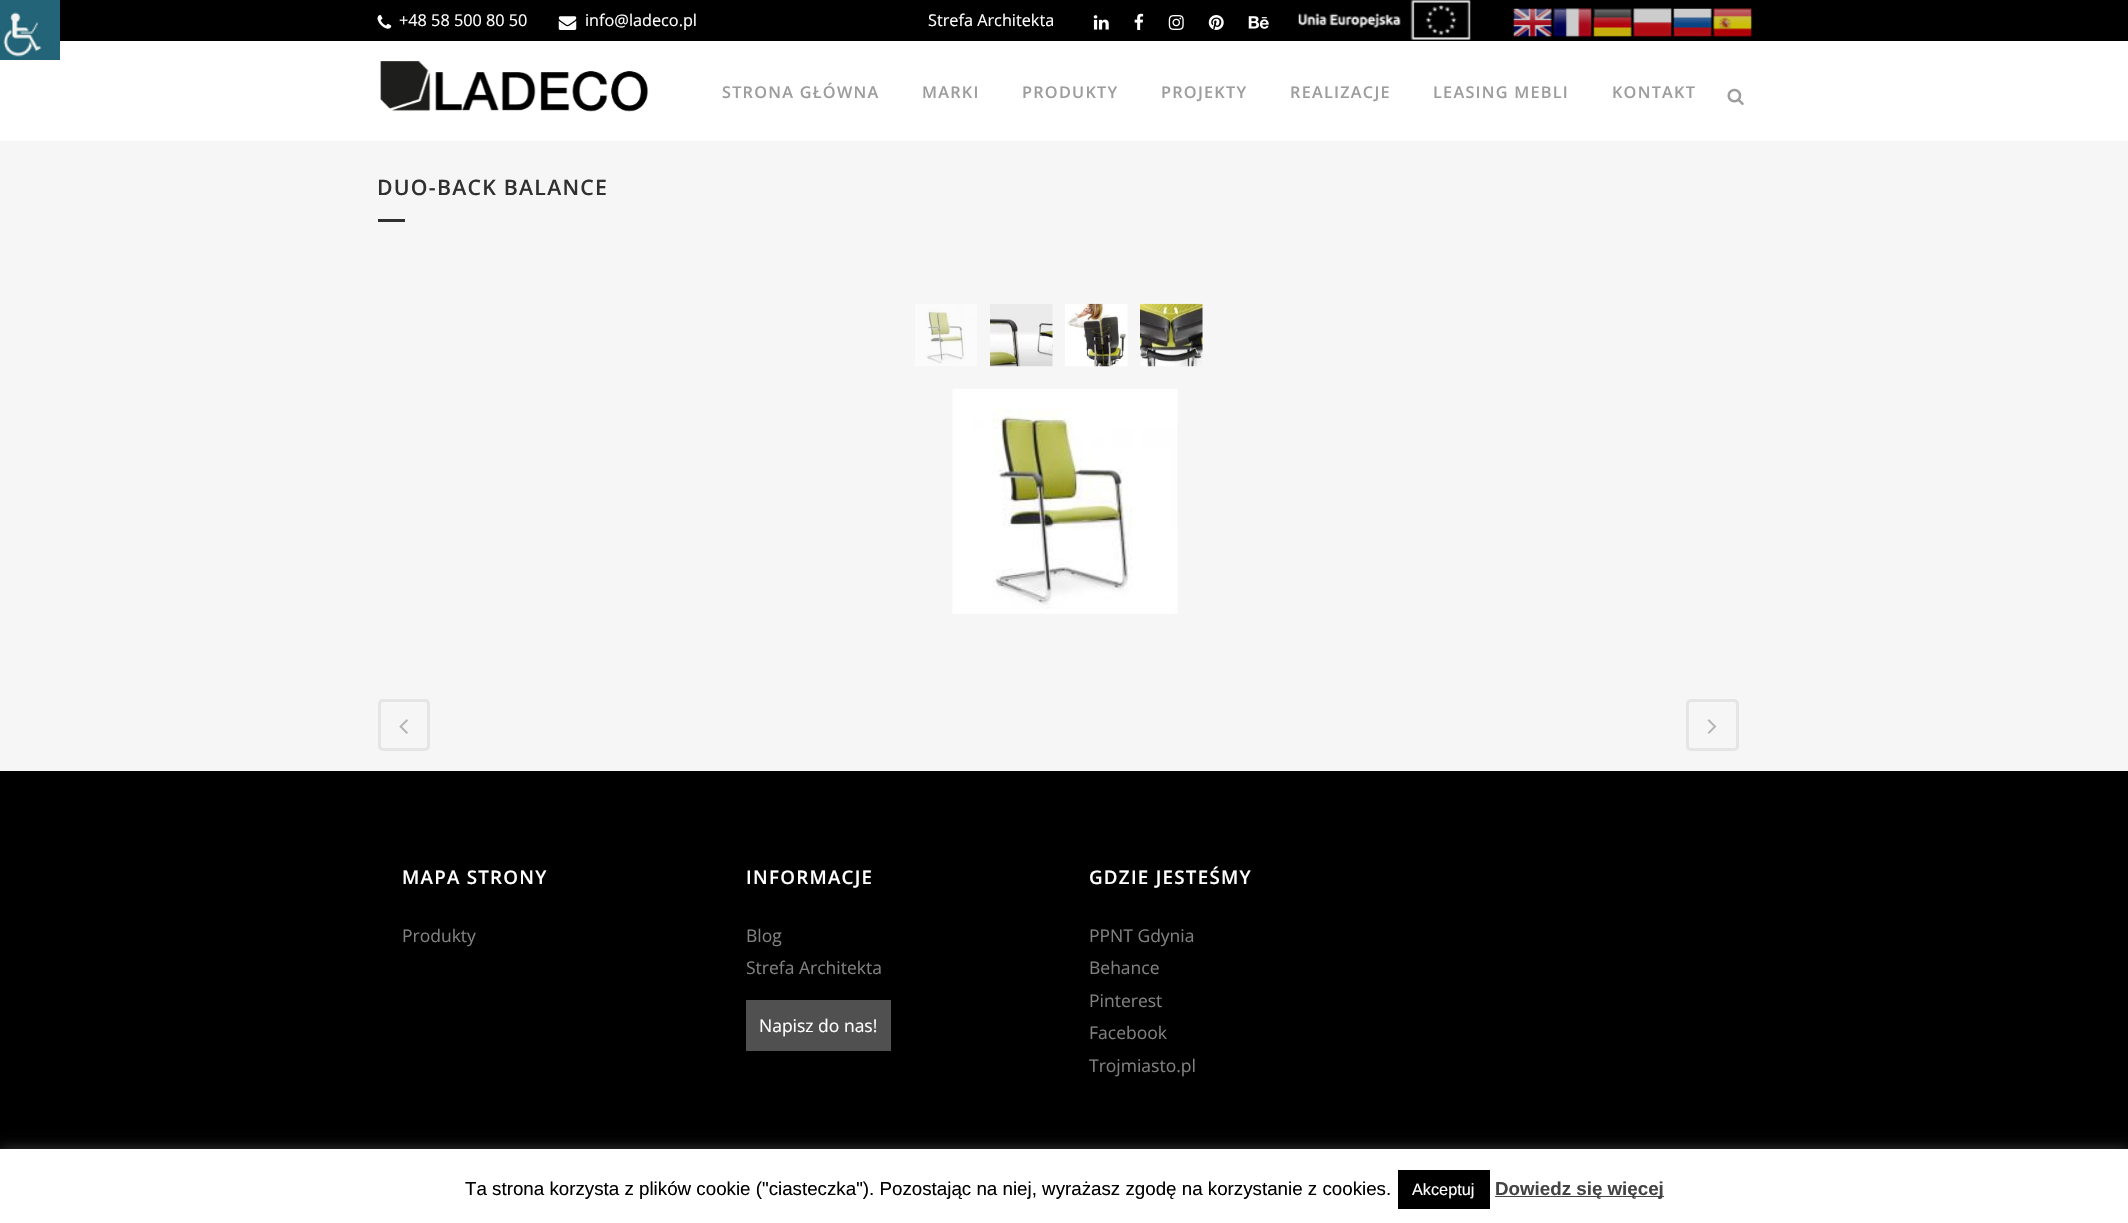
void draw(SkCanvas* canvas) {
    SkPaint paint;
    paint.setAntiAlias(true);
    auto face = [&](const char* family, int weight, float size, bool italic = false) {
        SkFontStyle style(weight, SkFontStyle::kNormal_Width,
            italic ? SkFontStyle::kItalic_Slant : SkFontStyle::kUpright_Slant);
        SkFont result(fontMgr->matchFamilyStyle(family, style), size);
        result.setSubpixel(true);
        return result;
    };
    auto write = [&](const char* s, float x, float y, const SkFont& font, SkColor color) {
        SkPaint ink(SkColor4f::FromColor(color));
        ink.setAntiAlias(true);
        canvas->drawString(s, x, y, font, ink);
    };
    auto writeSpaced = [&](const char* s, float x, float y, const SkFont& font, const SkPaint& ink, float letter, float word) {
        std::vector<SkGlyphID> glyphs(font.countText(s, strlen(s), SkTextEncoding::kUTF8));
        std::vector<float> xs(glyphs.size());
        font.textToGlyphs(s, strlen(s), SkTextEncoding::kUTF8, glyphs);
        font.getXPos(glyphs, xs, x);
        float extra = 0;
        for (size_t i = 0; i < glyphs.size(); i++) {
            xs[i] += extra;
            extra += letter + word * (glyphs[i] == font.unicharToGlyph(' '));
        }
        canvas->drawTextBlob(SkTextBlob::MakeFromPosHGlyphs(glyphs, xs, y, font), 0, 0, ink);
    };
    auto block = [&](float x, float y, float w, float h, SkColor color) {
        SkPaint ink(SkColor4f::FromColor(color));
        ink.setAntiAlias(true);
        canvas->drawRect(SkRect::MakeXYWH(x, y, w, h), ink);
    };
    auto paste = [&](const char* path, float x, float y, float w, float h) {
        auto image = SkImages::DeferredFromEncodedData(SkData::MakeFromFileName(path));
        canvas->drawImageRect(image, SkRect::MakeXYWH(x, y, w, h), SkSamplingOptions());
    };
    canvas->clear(SkColorSetRGB(246, 246, 246));
    block(0, 41, 2128, 100, SK_ColorWHITE);
    paste("pic1.png", 0, 0, 60, 60);
    block(60, 0, 2068, 41, SK_ColorBLACK);
    paste("pic2.png", 377, 15, 15, 14);
    auto kFont1 = face("Open Sans", 400, 16.25f);
    write("+48 58 500 80 50", 399, 26, kFont1, SK_ColorWHITE);
    paste("pic3.png", 558, 16, 19, 14);
    write("info@ladeco.pl", 585, 26, kFont1, SK_ColorWHITE);
    write("Strefa Architekta", 928, 26, kFont1, SK_ColorWHITE);
    paste("pic4.png", 1093, 15, 16, 15);
    paste("pic5.png", 1134, 13, 10, 17);
    paste("pic6.png", 1168, 15, 16, 15);
    paste("pic7.png", 1208, 15, 16, 15);
    paste("pic8.png", 1248, 16, 21, 13);
    paste("pic9.png", 1298, 0, 173, 40);
    paste("pic10.png", 1513, 8, 39, 29);
    paste("pic11.png", 1553, 8, 40, 30);
    paste("pic12.png", 1593, 8, 39, 29);
    paste("pic13.png", 1633, 8, 40, 30);
    paste("pic14.png", 1673, 8, 39, 29);
    paste("pic15.png", 1713, 8, 40, 30);
    paste("pic16.png", 380, 61, 269, 51);
    auto kFont2 = face("Open Sans", 600, 16.25f);
    paint.setColor(SkColorSetRGB(157, 157, 157));
    writeSpaced("STRONA GŁÓWNA", 722, 98, kFont2, paint, 1.25f, 0);
    writeSpaced("MARKI", 922, 98, kFont2, paint, 1.25f, 0);
    writeSpaced("PRODUKTY", 1022, 98, kFont2, paint, 1.25f, 0);
    writeSpaced("PROJEKTY", 1161, 98, kFont2, paint, 1.25f, 0);
    writeSpaced("REALIZACJE", 1290, 98, kFont2, paint, 1.25f, 0);
    writeSpaced("LEASING MEBLI", 1433, 98, kFont2, paint, 1.25f, 0);
    writeSpaced("KONTAKT", 1612, 98, kFont2, paint, 1.25f, 0);
    paste("pic17.png", 1727, 88, 17, 17);
    auto kFont3 = face("Open Sans", 600, 21.25f);
    paint.setColor(SkColorSetRGB(48, 48, 48));
    writeSpaced("DUO-BACK BALANCE", 377, 195, kFont3, paint, 1.25f, 0);
    block(378, 219, 27, 3, SkColorSetRGB(48, 48, 48));
    paste("pic18.png", 915, 304, 62, 62);
    paste("pic19.png", 990, 304, 63, 63);
    paste("pic20.png", 1065, 303, 63, 64);
    paste("pic21.png", 1140, 303, 63, 64);
    paste("pic22.png", 952, 389, 226, 225);
    paint.setStyle(SkPaint::kStroke_Style);
    paint.setStrokeWidth(3);
    paint.setColor(SkColorSetRGB(229, 229, 229));
    canvas->drawRoundRect(SkRect::MakeXYWH(379.5f, 700.5f, 49, 49), 3.5f, 3.5f, paint);
    paste("pic23.png", 399, 719, 9, 15);
    canvas->drawRoundRect(SkRect::MakeXYWH(1687.5f, 700.5f, 50, 49), 3.5f, 3.5f, paint);
    paste("pic24.png", 1707, 719, 10, 15);
    block(0, 771, 2128, 378, SK_ColorBLACK);
    auto kFont4 = face("Open Sans", 600, 18.75f);
    paint.setStyle(SkPaint::kFill_Style);
    paint.setColor(SK_ColorWHITE);
    writeSpaced("MAPA STRONY", 402, 884, kFont4, paint, 1.25f, 0);
    auto kFont5 = face("Open Sans", 400, 17.5f);
    write("Produkty", 402, 942, kFont5, SkColorSetRGB(129, 129, 129));
    writeSpaced("INFORMACJE", 746, 884, kFont4, paint, 1.25f, 0);
    write("Blog", 746, 942, kFont5, SkColorSetRGB(129, 129, 129));
    write("Strefa Architekta", 746, 974, kFont5, SkColorSetRGB(129, 129, 129));
    block(746, 1000, 145, 51, SkColorSetRGB(80, 80, 80));
    write("Napisz do nas!", 759, 1032, kFont5, SK_ColorWHITE);
    writeSpaced("GDZIE JESTEŚMY", 1089, 884, kFont4, paint, 1.25f, 0);
    write("PPNT Gdynia", 1089, 942, kFont5, SkColorSetRGB(129, 129, 129));
    write("Behance", 1089, 974, kFont5, SkColorSetRGB(129, 129, 129));
    write("Pinterest", 1089, 1007, kFont5, SkColorSetRGB(129, 129, 129));
    write("Facebook", 1089, 1039, kFont5, SkColorSetRGB(129, 129, 129));
    write("Trojmiasto.pl", 1089, 1072, kFont5, SkColorSetRGB(129, 129, 129));
    paint.setColor(SkColorSetARGB(77, 172, 171, 171));
    paint.setMaskFilter(SkMaskFilter::MakeBlur(kNormal_SkBlurStyle, 6));
    canvas->drawRect(SkRect::MakeXYWH(0, 1148, 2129, 75), paint);
    paint.setMaskFilter(nullptr);
    block(0, 1149, 2128, 74, SK_ColorWHITE);
    auto kFont6 = face("Liberation Sans", 400, 18.75f);
    write("Ta strona korzysta z plików cookie (\"ciasteczka\"). Pozostając na niej, wyrażasz zgodę na korzystanie z cookies.", 465, 1195, kFont6, SK_ColorBLACK);
    block(1398, 1170, 92, 39, SK_ColorBLACK);
    auto kFont7 = face("Liberation Sans", 400, 16.25f);
    write("Akceptuj", 1412, 1195, kFont7, SK_ColorWHITE);
    block(1495, 1196, 169, 1, SkColorSetRGB(68, 68, 68));
    auto kFont8 = face("Liberation Sans", 700, 18.75f);
    write("Dowiedz się więcej", 1495, 1195, kFont8, SkColorSetRGB(68, 68, 68));
}
